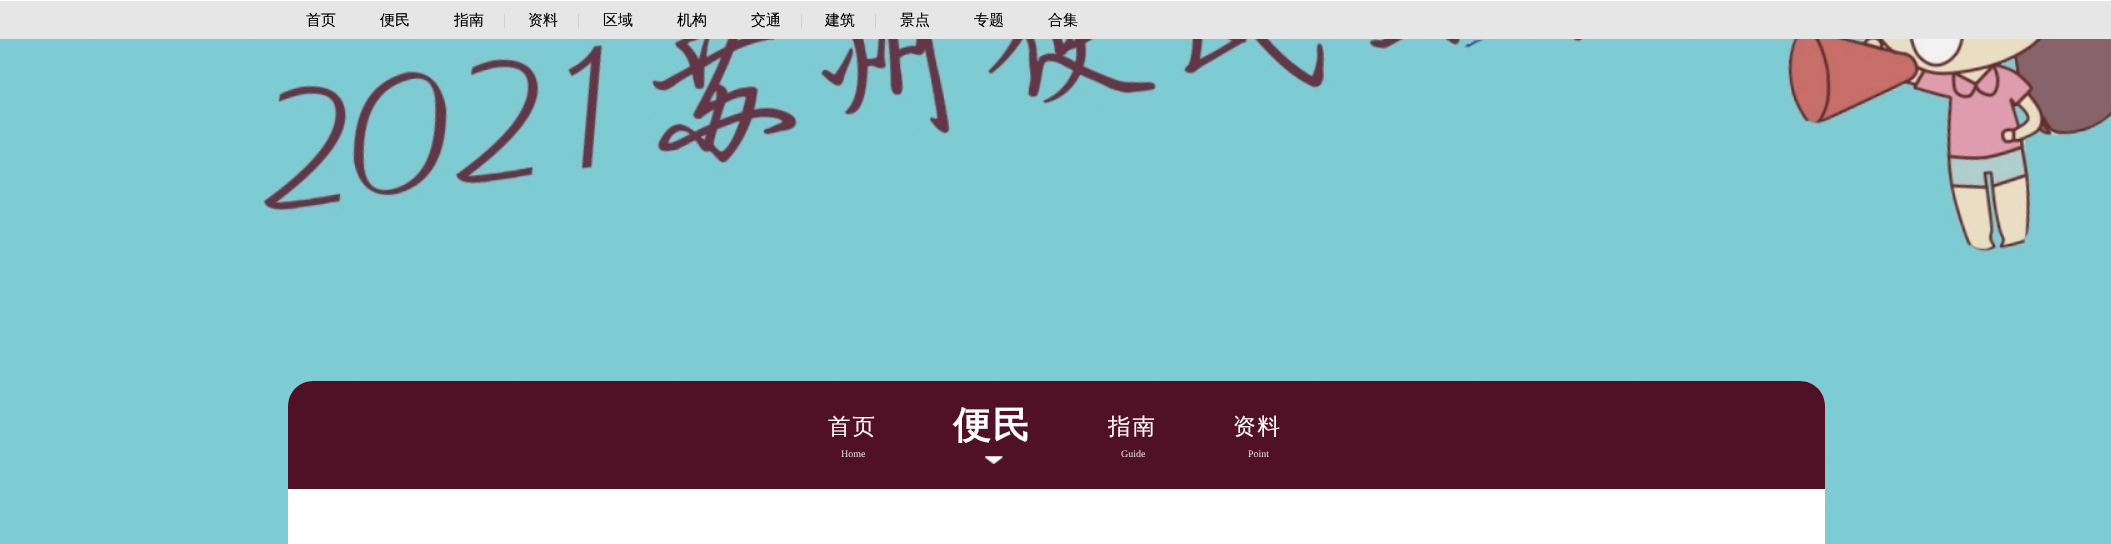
void draw(SkCanvas* canvas) {
    SkPaint paint;
    paint.setAntiAlias(true);
    auto face = [&](const char* family, int weight, float size, bool italic = false) {
        SkFontStyle style(weight, SkFontStyle::kNormal_Width,
            italic ? SkFontStyle::kItalic_Slant : SkFontStyle::kUpright_Slant);
        SkFont result(fontMgr->matchFamilyStyle(family, style), size);
        result.setSubpixel(true);
        return result;
    };
    auto write = [&](const char* s, float x, float y, const SkFont& font, SkColor color) {
        SkPaint ink(SkColor4f::FromColor(color));
        ink.setAntiAlias(true);
        canvas->drawString(s, x, y, font, ink);
    };
    auto writeSpaced = [&](const char* s, float x, float y, const SkFont& font, const SkPaint& ink, float letter, float word) {
        std::vector<SkGlyphID> glyphs(font.countText(s, strlen(s), SkTextEncoding::kUTF8));
        std::vector<float> xs(glyphs.size());
        font.textToGlyphs(s, strlen(s), SkTextEncoding::kUTF8, glyphs);
        font.getXPos(glyphs, xs, x);
        float extra = 0;
        for (size_t i = 0; i < glyphs.size(); i++) {
            xs[i] += extra;
            extra += letter + word * (glyphs[i] == font.unicharToGlyph(' '));
        }
        canvas->drawTextBlob(SkTextBlob::MakeFromPosHGlyphs(glyphs, xs, y, font), 0, 0, ink);
    };
    auto block = [&](float x, float y, float w, float h, SkColor color) {
        SkPaint ink(SkColor4f::FromColor(color));
        ink.setAntiAlias(true);
        canvas->drawRect(SkRect::MakeXYWH(x, y, w, h), ink);
    };
    auto paste = [&](const char* path, float x, float y, float w, float h) {
        auto image = SkImages::DeferredFromEncodedData(SkData::MakeFromFileName(path));
        canvas->drawImageRect(image, SkRect::MakeXYWH(x, y, w, h), SkSamplingOptions());
    };
    canvas->clear(SK_ColorWHITE);
    paste("pic1.png", 0, 39, 2111, 505);
    block(0, 1, 2111, 38, SkColorSetRGB(230, 230, 230));
    auto kFont1 = face("WenQuanYi Zen Hei", 500, 15);
    write("首页", 306, 25, kFont1, SK_ColorBLACK);
    write("便民", 380, 25, kFont1, SK_ColorBLACK);
    write("指南", 454, 25, kFont1, SK_ColorBLACK);
    auto kFont2 = face("Liberation Serif", 400, 15);
    write("|", 503, 25, kFont2, SkColorSetRGB(204, 204, 204));
    write("资料", 528, 25, kFont1, SK_ColorBLACK);
    write("|", 577, 25, kFont2, SkColorSetRGB(204, 204, 204));
    write("区域", 603, 25, kFont1, SK_ColorBLACK);
    write("机构", 677, 25, kFont1, SK_ColorBLACK);
    write("交通", 751, 25, kFont1, SK_ColorBLACK);
    write("|", 800, 25, kFont2, SkColorSetRGB(204, 204, 204));
    write("建筑", 825, 25, kFont1, SK_ColorBLACK);
    write("|", 874, 25, kFont2, SkColorSetRGB(204, 204, 204));
    write("景点", 900, 25, kFont1, SK_ColorBLACK);
    write("专题", 974, 25, kFont1, SK_ColorBLACK);
    write("合集", 1048, 25, kFont1, SK_ColorBLACK);
    paint.setColor(SK_ColorWHITE);
    canvas->drawPath(SkPathBuilder().moveTo(313, 381).lineTo(1800, 381).cubicTo(1814, 381, 1825, 392, 1825, 406).lineTo(1825, 514).lineTo(288, 514).lineTo(288, 406).cubicTo(288, 392, 299, 381, 313, 381).close().detach(), paint);
    paint.setColor(SkColorSetRGB(80, 17, 38));
    canvas->drawPath(SkPathBuilder().moveTo(313, 381).lineTo(1800, 381).cubicTo(1814, 381, 1825, 392, 1825, 406).lineTo(1825, 489).lineTo(288, 489).lineTo(288, 406).cubicTo(288, 392, 299, 381, 313, 381).close().detach(), paint);
    auto kFont3 = face("WenQuanYi Zen Hei", 500, 22.5f);
    paint.setColor(SK_ColorWHITE);
    writeSpaced("首页", 828, 434, kFont3, paint, 2, 0);
    auto kFont4 = face("Liberation Serif", 400, 10);
    write("Home", 841, 457, kFont4, SkColorSetRGB(220, 207, 212));
    paste("pic2.png", 984, 456, 19, 8);
    auto kFont5 = face("WenQuanYi Zen Hei", 700, 37.5f);
    writeSpaced("便民", 953, 438, kFont5, paint, 2, 0);
    writeSpaced("指南", 1108, 434, kFont3, paint, 2, 0);
    write("Guide", 1121, 457, kFont4, SkColorSetRGB(220, 207, 212));
    writeSpaced("资料", 1233, 434, kFont3, paint, 2, 0);
    write("Point", 1248, 457, kFont4, SkColorSetRGB(220, 207, 212));
    block(288, 514, 1537, 30, SK_ColorWHITE);
}
